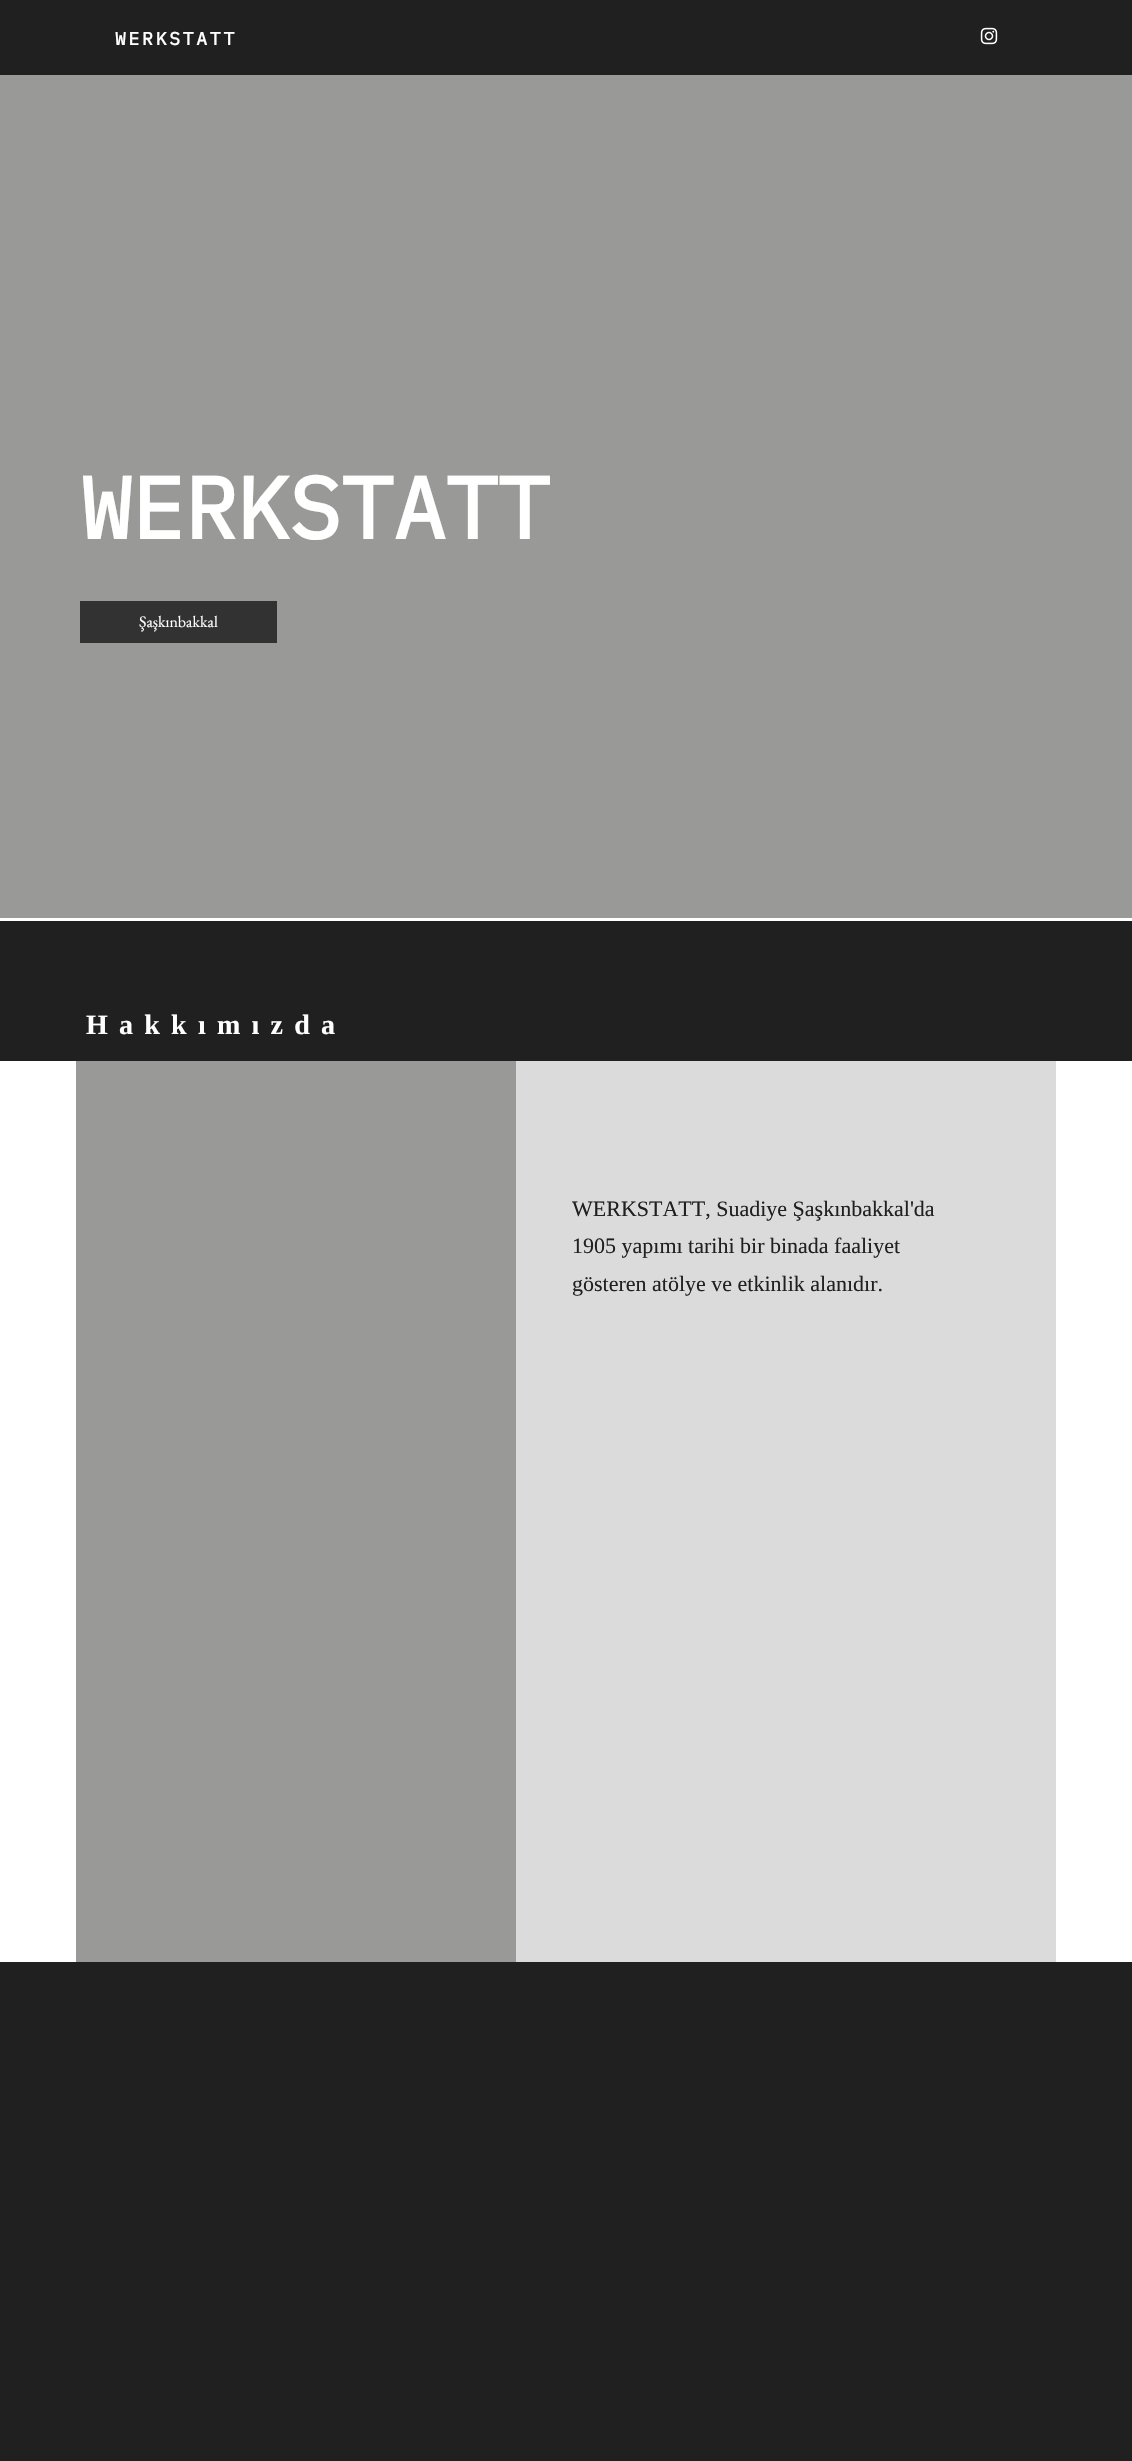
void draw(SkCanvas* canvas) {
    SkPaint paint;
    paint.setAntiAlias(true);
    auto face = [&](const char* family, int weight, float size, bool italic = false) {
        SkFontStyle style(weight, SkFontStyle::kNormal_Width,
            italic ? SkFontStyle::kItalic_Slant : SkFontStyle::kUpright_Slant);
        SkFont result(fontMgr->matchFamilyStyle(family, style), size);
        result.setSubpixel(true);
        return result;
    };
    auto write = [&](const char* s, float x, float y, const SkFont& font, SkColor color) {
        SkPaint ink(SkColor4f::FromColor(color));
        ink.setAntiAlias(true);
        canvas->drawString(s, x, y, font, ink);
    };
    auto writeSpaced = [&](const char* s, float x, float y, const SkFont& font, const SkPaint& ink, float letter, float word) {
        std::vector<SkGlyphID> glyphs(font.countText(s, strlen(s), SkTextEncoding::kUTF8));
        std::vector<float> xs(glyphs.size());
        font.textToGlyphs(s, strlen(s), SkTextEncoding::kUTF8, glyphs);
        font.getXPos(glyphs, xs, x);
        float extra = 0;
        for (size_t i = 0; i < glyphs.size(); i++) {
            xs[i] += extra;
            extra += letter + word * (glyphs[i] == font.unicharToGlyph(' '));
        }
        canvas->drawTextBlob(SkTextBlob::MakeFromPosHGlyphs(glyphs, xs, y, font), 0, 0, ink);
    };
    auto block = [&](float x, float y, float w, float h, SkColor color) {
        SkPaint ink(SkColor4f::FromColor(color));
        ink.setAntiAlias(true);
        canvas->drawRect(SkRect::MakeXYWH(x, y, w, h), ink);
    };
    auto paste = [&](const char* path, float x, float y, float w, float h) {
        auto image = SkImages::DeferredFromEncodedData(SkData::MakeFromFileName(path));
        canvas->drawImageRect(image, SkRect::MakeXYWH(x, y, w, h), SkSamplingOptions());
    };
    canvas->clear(SK_ColorWHITE);
    block(0, 0, 1132, 75, SkColorSetRGB(32, 32, 32));
    paste("pic1.png", 980, 27, 18, 18);
    auto kFont1 = face("IBM Plex Mono", 700, 18);
    paint.setColor(SK_ColorWHITE);
    writeSpaced("WERKSTATT", 115, 45, kFont1, paint, 2.75f, 0);
    block(0, 75, 1132, 843, SkColorSetRGB(153, 153, 151));
    auto kFont2 = face("IBM Plex Mono", 700, 87);
    write("WERKSTATT", 80, 539, kFont2, SK_ColorWHITE);
    block(80, 601, 197, 42, SkColorSetRGB(50, 50, 50));
    auto kFont3 = face("EB Garamond", 400, 16);
    write("Şaşkınbakkal", 139, 627, kFont3, SK_ColorWHITE);
    block(0, 921, 1132, 140, SkColorSetRGB(32, 32, 32));
    auto kFont4 = face("Liberation Serif", 700, 28);
    writeSpaced("Hakkımızda", 86, 1034, kFont4, paint, 11.25f, 0);
    block(76, 1061, 440, 901, SkColorSetRGB(153, 153, 151));
    block(516, 1061, 540, 901, SkColorSetRGB(219, 219, 219));
    auto kFont5 = face("Liberation Serif", 400, 22);
    write("WERKSTATT, Suadiye Şaşkınbakkal'da", 572, 1216, kFont5, SkColorSetRGB(32, 32, 32));
    write("1905 yapımı tarihi bir binada faaliyet", 572, 1253, kFont5, SkColorSetRGB(32, 32, 32));
    write("gösteren atölye ve etkinlik alanıdır.", 572, 1291, kFont5, SkColorSetRGB(32, 32, 32));
    block(0, 1962, 1132, 499, SkColorSetRGB(32, 32, 32));
}
